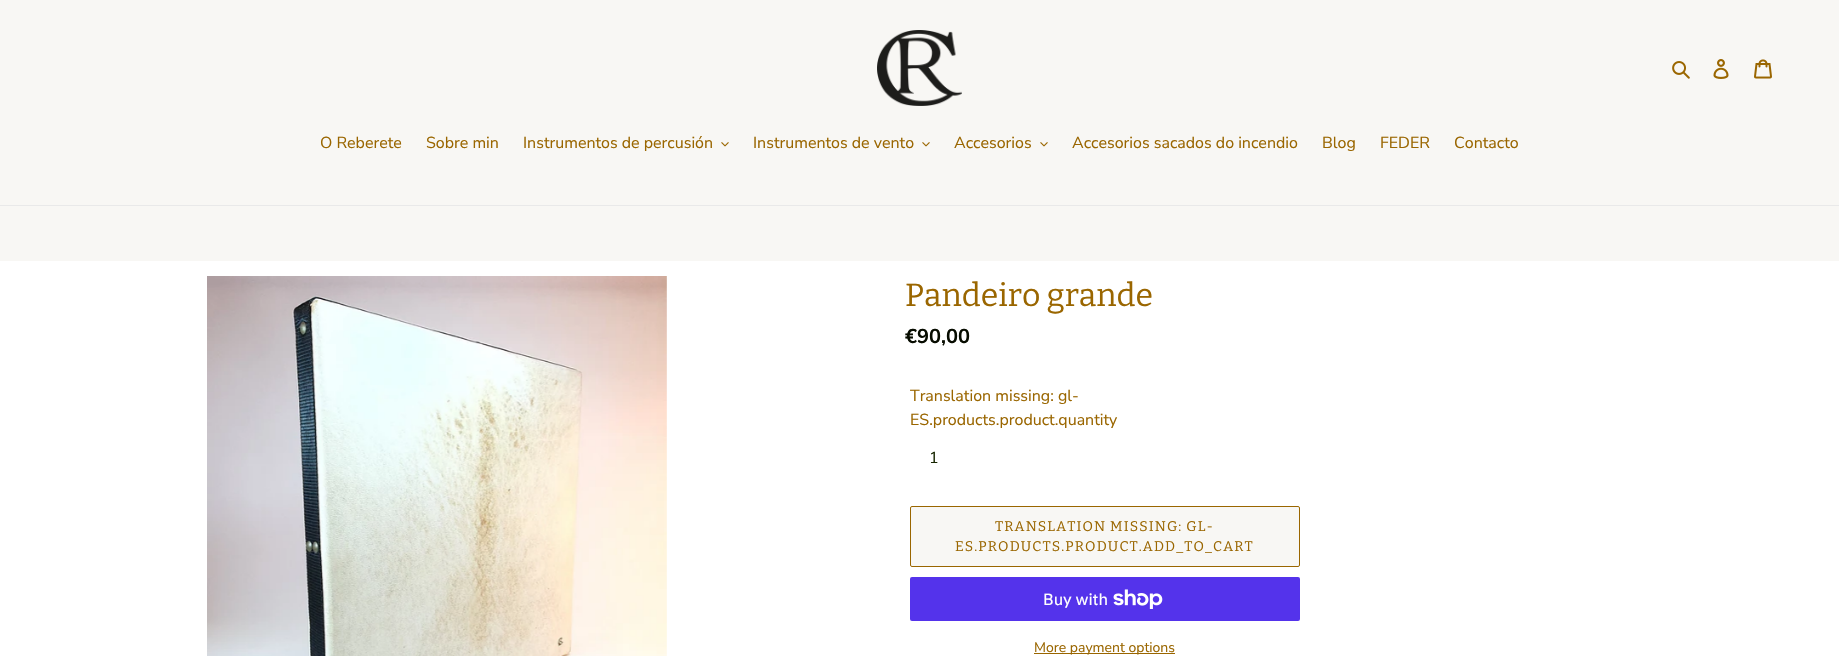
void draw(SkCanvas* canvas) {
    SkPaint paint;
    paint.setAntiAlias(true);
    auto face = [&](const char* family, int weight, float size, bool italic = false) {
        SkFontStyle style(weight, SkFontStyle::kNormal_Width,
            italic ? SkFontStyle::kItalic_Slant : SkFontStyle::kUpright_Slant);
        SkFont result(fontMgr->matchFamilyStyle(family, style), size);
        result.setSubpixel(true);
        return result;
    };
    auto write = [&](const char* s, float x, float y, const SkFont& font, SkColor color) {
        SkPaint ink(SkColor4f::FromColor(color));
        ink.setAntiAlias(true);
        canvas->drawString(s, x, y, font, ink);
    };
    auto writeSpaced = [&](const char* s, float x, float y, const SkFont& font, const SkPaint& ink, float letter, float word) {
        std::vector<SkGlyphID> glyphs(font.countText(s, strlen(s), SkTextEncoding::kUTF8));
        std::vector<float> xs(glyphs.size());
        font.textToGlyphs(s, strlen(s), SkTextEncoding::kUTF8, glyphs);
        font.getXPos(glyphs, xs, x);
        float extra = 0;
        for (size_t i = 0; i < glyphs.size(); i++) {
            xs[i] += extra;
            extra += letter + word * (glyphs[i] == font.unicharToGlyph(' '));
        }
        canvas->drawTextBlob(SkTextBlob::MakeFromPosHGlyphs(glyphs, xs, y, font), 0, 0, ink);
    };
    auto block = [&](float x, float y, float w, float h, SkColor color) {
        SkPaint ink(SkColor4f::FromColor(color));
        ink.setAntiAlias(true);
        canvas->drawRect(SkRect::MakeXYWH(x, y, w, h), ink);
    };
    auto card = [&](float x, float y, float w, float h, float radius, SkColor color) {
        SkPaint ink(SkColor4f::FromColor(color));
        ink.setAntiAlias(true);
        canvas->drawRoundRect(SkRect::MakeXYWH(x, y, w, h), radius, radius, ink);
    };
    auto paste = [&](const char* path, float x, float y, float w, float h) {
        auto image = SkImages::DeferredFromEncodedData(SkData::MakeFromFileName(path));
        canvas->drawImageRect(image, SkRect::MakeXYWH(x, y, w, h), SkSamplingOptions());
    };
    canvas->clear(SkColorSetRGB(248, 247, 244));
    paste("pic1.png", 877, 30, 85, 76);
    paste("pic2.png", 1672, 61, 18, 18);
    paste("pic3.png", 1713, 59, 16, 20);
    paste("pic4.png", 1754, 59, 18, 20);
    block(0, 205, 1839, 1, SkColorSetRGB(233, 233, 233));
    auto kFont1 = face("Nunito Sans", 400, 16);
    write("O Reberete", 320, 148, kFont1, SkColorSetRGB(154, 102, 0));
    write("Sobre min", 426, 148, kFont1, SkColorSetRGB(154, 102, 0));
    write("Instrumentos de percusión", 523, 148, kFont1, SkColorSetRGB(154, 102, 0));
    paste("pic5.png", 721, 142, 8, 5);
    write("Instrumentos de vento", 753, 148, kFont1, SkColorSetRGB(154, 102, 0));
    paste("pic5.png", 922, 142, 8, 5);
    write("Accesorios", 954, 148, kFont1, SkColorSetRGB(154, 102, 0));
    paste("pic5.png", 1040, 142, 8, 5);
    write("Accesorios sacados do incendio", 1072, 148, kFont1, SkColorSetRGB(154, 102, 0));
    write("Blog", 1322, 148, kFont1, SkColorSetRGB(154, 102, 0));
    write("FEDER", 1380, 148, kFont1, SkColorSetRGB(154, 102, 0));
    write("Contacto", 1454, 148, kFont1, SkColorSetRGB(154, 102, 0));
    block(0, 261, 1839, 395, SK_ColorWHITE);
    paste("pic6.png", 207, 276, 460, 380);
    auto kFont2 = face("Bitter", 400, 32);
    write("Pandeiro grande", 905, 306, kFont2, SkColorSetRGB(154, 102, 0));
    auto kFont3 = face("Nunito Sans", 700, 20);
    write("€90,00", 905, 343, kFont3, SkColorSetRGB(7, 12, 0));
    write("Translation missing: gl-", 910, 401, kFont1, SkColorSetRGB(154, 102, 0));
    write("ES.products.product.quantity", 910, 425, kFont1, SkColorSetRGB(154, 102, 0));
    write("1", 929, 463, kFont1, SkColorSetRGB(23, 38, 1));
    paint.setColor(SkColorSetRGB(248, 247, 244));
    canvas->drawRoundRect(SkRect::MakeXYWH(910.5f, 506.5f, 389, 60), 1.5f, 1.5f, paint);
    paint.setStyle(SkPaint::kStroke_Style);
    paint.setStrokeWidth(1);
    paint.setColor(SkColorSetRGB(154, 102, 0));
    canvas->drawRoundRect(SkRect::MakeXYWH(910.5f, 506.5f, 389, 60), 1.5f, 1.5f, paint);
    auto kFont4 = face("Bitter", 400, 14);
    paint.setStyle(SkPaint::kFill_Style);
    writeSpaced("TRANSLATION MISSING: GL-", 995, 531, kFont4, paint, 1.1f, 0);
    writeSpaced("ES.PRODUCTS.PRODUCT.ADD_TO_CART", 955, 551, kFont4, paint, 1.1f, 0);
    card(910, 577, 390, 44, 2, SkColorSetRGB(84, 51, 235));
    auto kFont5 = face("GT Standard", 400, 16);
    write("Buy with", 1043, 605, kFont5, SK_ColorWHITE);
    paste("pic7.png", 1113, 589, 50, 20);
    block(1034, 653, 141, 1, SkColorSetRGB(154, 102, 0));
    auto kFont6 = face("Nunito Sans", 400, 14);
    write("More payment options", 1034, 652, kFont6, SkColorSetRGB(154, 102, 0));
}
